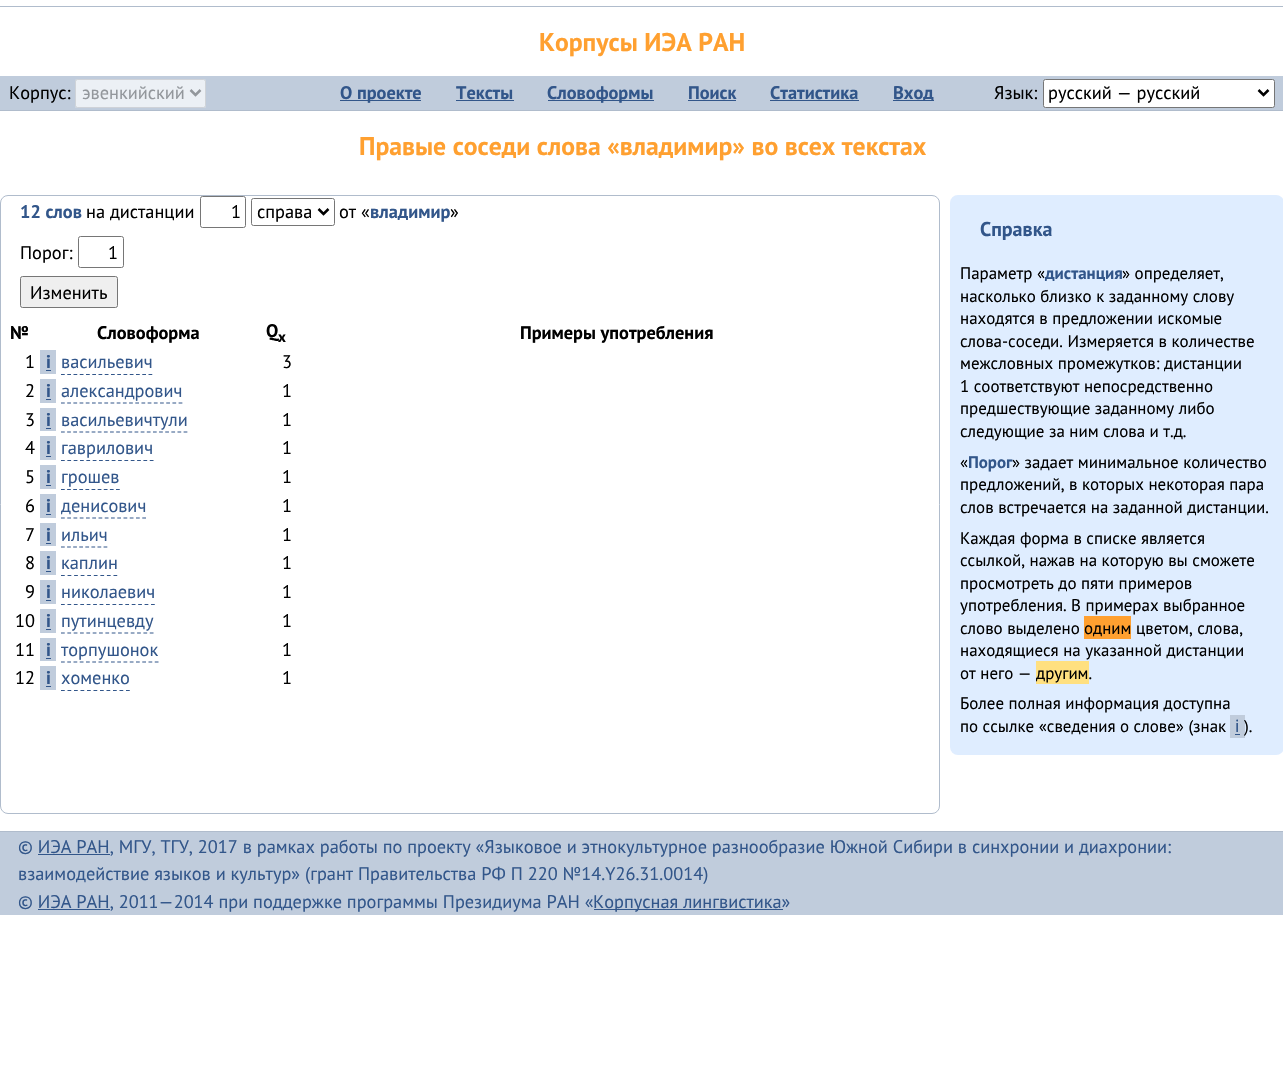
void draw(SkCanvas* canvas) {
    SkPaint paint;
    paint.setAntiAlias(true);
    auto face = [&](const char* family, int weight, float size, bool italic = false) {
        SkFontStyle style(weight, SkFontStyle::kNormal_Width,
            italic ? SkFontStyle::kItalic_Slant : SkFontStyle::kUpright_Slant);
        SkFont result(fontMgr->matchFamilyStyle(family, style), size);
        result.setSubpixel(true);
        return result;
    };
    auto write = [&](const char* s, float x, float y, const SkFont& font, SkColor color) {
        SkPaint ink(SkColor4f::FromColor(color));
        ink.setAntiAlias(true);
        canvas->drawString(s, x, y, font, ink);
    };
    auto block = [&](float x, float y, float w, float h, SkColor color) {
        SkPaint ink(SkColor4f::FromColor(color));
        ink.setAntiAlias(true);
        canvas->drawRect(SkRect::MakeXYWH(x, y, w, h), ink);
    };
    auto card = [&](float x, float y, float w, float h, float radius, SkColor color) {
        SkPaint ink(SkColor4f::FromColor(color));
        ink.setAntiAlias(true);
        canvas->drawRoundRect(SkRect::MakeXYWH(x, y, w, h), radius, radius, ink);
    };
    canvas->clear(SK_ColorWHITE);
    block(0, 6, 1283, 1, SkColorSetRGB(176, 188, 204));
    auto kFont1 = face("PT Sans", 700, 25.7f);
    write("Корпусы ИЭА РАН", 539, 51, kFont1, SkColorSetRGB(255, 160, 48));
    block(0, 76, 1283, 34, SkColorSetRGB(192, 204, 220));
    block(0, 110, 1283, 1, SkColorSetRGB(176, 188, 204));
    auto kFont2 = face("PT Sans", 400, 18.33f);
    write("Корпус:", 9, 99, kFont2, SK_ColorBLACK);
    card(75, 79, 131, 29, 2.5f, SkColorSetRGB(236, 240, 245));
    paint.setStyle(SkPaint::kStroke_Style);
    paint.setStrokeWidth(1);
    paint.setColor(SkColorSetARGB(77, 140, 144, 149));
    canvas->drawRoundRect(SkRect::MakeXYWH(75.5f, 79.5f, 130, 28), 2, 2, paint);
    paint.setStrokeWidth(2.5f);
    paint.setColor(SkColorSetRGB(147, 151, 156));
    canvas->drawPath(SkPathBuilder().moveTo(190.5f, 90).lineTo(195.5f, 95).lineTo(200.5f, 90).detach(), paint);
    write("эвенкийский", 82, 99, kFont2, SkColorSetRGB(147, 151, 156));
    block(340, 100, 81, 1, SkColorSetRGB(50, 86, 138));
    auto kFont3 = face("PT Sans", 700, 18.33f);
    write("О проекте", 340, 99, kFont3, SkColorSetRGB(50, 86, 138));
    write("Тексты", 456, 99, kFont3, SkColorSetRGB(50, 86, 138));
    block(456, 100, 58, 1, SkColorSetRGB(50, 86, 138));
    block(548, 100, 106, 1, SkColorSetRGB(50, 86, 138));
    write("Словоформы", 547, 99, kFont3, SkColorSetRGB(50, 86, 138));
    write("Поиск", 688, 99, kFont3, SkColorSetRGB(50, 86, 138));
    block(688, 100, 48, 1, SkColorSetRGB(50, 86, 138));
    write("Статистика", 770, 99, kFont3, SkColorSetRGB(50, 86, 138));
    block(770, 100, 89, 1, SkColorSetRGB(50, 86, 138));
    block(893, 100, 41, 1, SkColorSetRGB(50, 86, 138));
    write("Вход", 893, 99, kFont3, SkColorSetRGB(50, 86, 138));
    write("Язык:", 994, 99, kFont2, SK_ColorBLACK);
    paint.setStyle(SkPaint::kFill_Style);
    paint.setColor(SK_ColorWHITE);
    canvas->drawRoundRect(SkRect::MakeXYWH(1043.5f, 79.5f, 231, 28), 2, 2, paint);
    paint.setStyle(SkPaint::kStroke_Style);
    paint.setStrokeWidth(1);
    paint.setColor(SkColorSetRGB(118, 118, 118));
    canvas->drawRoundRect(SkRect::MakeXYWH(1043.5f, 79.5f, 231, 28), 2, 2, paint);
    paint.setStrokeWidth(2.5f);
    paint.setColor(SK_ColorBLACK);
    canvas->drawPath(SkPathBuilder().moveTo(1258.5f, 90).lineTo(1263.5f, 95).lineTo(1268.5f, 90).detach(), paint);
    write("русский — русский", 1048, 99, kFont2, SK_ColorBLACK);
    write("Правые соседи слова «владимир» во всех текстах", 359, 155, kFont1, SkColorSetRGB(255, 160, 48));
    paint.setStrokeWidth(1);
    paint.setColor(SkColorSetRGB(176, 188, 204));
    canvas->drawRoundRect(SkRect::MakeXYWH(0.5f, 195.5f, 939, 618), 7.5f, 7.5f, paint);
    write("12 слов", 20, 218, kFont3, SkColorSetRGB(50, 86, 138));
    write("на дистанции", 86, 218, kFont2, SK_ColorBLACK);
    paint.setColor(SkColorSetRGB(118, 118, 118));
    canvas->drawRoundRect(SkRect::MakeXYWH(200.5f, 196.5f, 45, 31), 2, 2, paint);
    write("1", 231, 218, kFont2, SK_ColorBLACK);
    canvas->drawRoundRect(SkRect::MakeXYWH(251.5f, 198.5f, 83, 27), 2, 2, paint);
    paint.setStrokeWidth(2.5f);
    paint.setColor(SK_ColorBLACK);
    canvas->drawPath(SkPathBuilder().moveTo(318.5f, 209).lineTo(323.5f, 214).lineTo(328.5f, 209).detach(), paint);
    write("справа", 257, 218, kFont2, SK_ColorBLACK);
    write("от «", 339, 218, kFont2, SK_ColorBLACK);
    write("владимир", 370, 218, kFont3, SkColorSetRGB(50, 86, 138));
    write("»", 450, 218, kFont2, SK_ColorBLACK);
    write("Порог:", 20, 259, kFont2, SK_ColorBLACK);
    paint.setStrokeWidth(1);
    paint.setColor(SkColorSetRGB(118, 118, 118));
    canvas->drawRoundRect(SkRect::MakeXYWH(78.5f, 236.5f, 45, 31), 2, 2, paint);
    write("1", 108, 259, kFont2, SK_ColorBLACK);
    paint.setStyle(SkPaint::kFill_Style);
    paint.setColor(SkColorSetRGB(239, 239, 239));
    canvas->drawRoundRect(SkRect::MakeXYWH(20.5f, 276.5f, 97, 31), 2, 2, paint);
    paint.setStyle(SkPaint::kStroke_Style);
    paint.setColor(SkColorSetRGB(118, 118, 118));
    canvas->drawRoundRect(SkRect::MakeXYWH(20.5f, 276.5f, 97, 31), 2, 2, paint);
    write("Изменить", 30, 299, kFont2, SK_ColorBLACK);
    write("№", 10, 339, kFont3, SK_ColorBLACK);
    write("Словоформа", 97, 339, kFont3, SK_ColorBLACK);
    write("Q", 266, 337, kFont3, SK_ColorBLACK);
    auto kFont4 = face("PT Sans", 700, 15);
    write("x", 278, 342, kFont4, SK_ColorBLACK);
    write("Примеры употребления", 520, 339, kFont3, SK_ColorBLACK);
    write("1", 25, 368, kFont2, SK_ColorBLACK);
    block(40, 350, 16, 24, SkColorSetRGB(192, 204, 220));
    write("i", 46, 368, kFont3, SkColorSetRGB(50, 86, 138));
    block(46, 370, 5, 1, SkColorSetRGB(50, 86, 138));
    write("васильевич", 61, 368, kFont2, SkColorSetRGB(50, 86, 138));
    paint.setStrokeWidth(1.2f);
    paint.setColor(SkColorSetRGB(50, 86, 138));
    paint.setPathEffect(SkDashPathEffect::Make({{3.75f, 2.5f}}, 0));
    canvas->drawPath(SkPathBuilder().moveTo(61, 374.5f).lineTo(152.5f, 374.5f).detach(), paint);
    paint.setPathEffect(nullptr);
    write("3", 282, 368, kFont2, SK_ColorBLACK);
    write("2", 25, 397, kFont2, SK_ColorBLACK);
    block(40, 379, 16, 24, SkColorSetRGB(192, 204, 220));
    write("i", 46, 397, kFont3, SkColorSetRGB(50, 86, 138));
    block(46, 399, 5, 1, SkColorSetRGB(50, 86, 138));
    write("александрович", 61, 397, kFont2, SkColorSetRGB(50, 86, 138));
    paint.setPathEffect(SkDashPathEffect::Make({{3.75f, 2.44f}}, 0));
    canvas->drawPath(SkPathBuilder().moveTo(61, 403).lineTo(182.5f, 403).detach(), paint);
    paint.setPathEffect(nullptr);
    write("1", 282, 397, kFont2, SK_ColorBLACK);
    write("3", 25, 426, kFont2, SK_ColorBLACK);
    block(40, 408, 16, 23, SkColorSetRGB(192, 204, 220));
    write("i", 46, 426, kFont3, SkColorSetRGB(50, 86, 138));
    block(46, 428, 5, 1, SkColorSetRGB(50, 86, 138));
    write("васильевичтули", 61, 426, kFont2, SkColorSetRGB(50, 86, 138));
    paint.setPathEffect(SkDashPathEffect::Make({{3.75f, 2.38f}}, 0));
    canvas->drawPath(SkPathBuilder().moveTo(61, 432).lineTo(187.5f, 432).detach(), paint);
    paint.setPathEffect(nullptr);
    write("1", 282, 426, kFont2, SK_ColorBLACK);
    write("4", 25, 454, kFont2, SK_ColorBLACK);
    block(40, 436, 16, 24, SkColorSetRGB(192, 204, 220));
    write("i", 46, 454, kFont3, SkColorSetRGB(50, 86, 138));
    block(46, 456, 5, 1, SkColorSetRGB(50, 86, 138));
    write("гаврилович", 61, 454, kFont2, SkColorSetRGB(50, 86, 138));
    paint.setPathEffect(SkDashPathEffect::Make({{3.75f, 2.59f}}, 0));
    canvas->drawPath(SkPathBuilder().moveTo(61, 460.5f).lineTo(154, 460.5f).detach(), paint);
    paint.setPathEffect(nullptr);
    write("1", 282, 454, kFont2, SK_ColorBLACK);
    write("5", 25, 483, kFont2, SK_ColorBLACK);
    block(40, 465, 16, 24, SkColorSetRGB(192, 204, 220));
    write("i", 46, 483, kFont3, SkColorSetRGB(50, 86, 138));
    block(46, 485, 5, 1, SkColorSetRGB(50, 86, 138));
    write("грошев", 61, 483, kFont2, SkColorSetRGB(50, 86, 138));
    paint.setPathEffect(SkDashPathEffect::Make({{3.75f, 2.36f}}, 0));
    canvas->drawPath(SkPathBuilder().moveTo(61, 489.5f).lineTo(120, 489.5f).detach(), paint);
    paint.setPathEffect(nullptr);
    write("1", 282, 483, kFont2, SK_ColorBLACK);
    write("6", 25, 512, kFont2, SK_ColorBLACK);
    block(40, 494, 16, 24, SkColorSetRGB(192, 204, 220));
    write("i", 46, 512, kFont3, SkColorSetRGB(50, 86, 138));
    block(46, 514, 5, 1, SkColorSetRGB(50, 86, 138));
    write("денисович", 61, 512, kFont2, SkColorSetRGB(50, 86, 138));
    paint.setPathEffect(SkDashPathEffect::Make({{3.75f, 2.5f}}, 0));
    canvas->drawPath(SkPathBuilder().moveTo(61, 518).lineTo(146, 518).detach(), paint);
    paint.setPathEffect(nullptr);
    write("1", 282, 512, kFont2, SK_ColorBLACK);
    write("7", 25, 541, kFont2, SK_ColorBLACK);
    block(40, 523, 16, 23, SkColorSetRGB(192, 204, 220));
    write("i", 46, 541, kFont3, SkColorSetRGB(50, 86, 138));
    block(46, 543, 5, 1, SkColorSetRGB(50, 86, 138));
    write("ильич", 61, 541, kFont2, SkColorSetRGB(50, 86, 138));
    paint.setPathEffect(SkDashPathEffect::Make({{3.75f, 2.33f}}, 0));
    canvas->drawPath(SkPathBuilder().moveTo(61, 547).lineTo(107.5f, 547).detach(), paint);
    paint.setPathEffect(nullptr);
    write("1", 282, 541, kFont2, SK_ColorBLACK);
    write("8", 25, 569, kFont2, SK_ColorBLACK);
    block(40, 551, 16, 24, SkColorSetRGB(192, 204, 220));
    write("i", 46, 569, kFont3, SkColorSetRGB(50, 86, 138));
    block(46, 571, 5, 1, SkColorSetRGB(50, 86, 138));
    write("каплин", 61, 569, kFont2, SkColorSetRGB(50, 86, 138));
    paint.setPathEffect(SkDashPathEffect::Make({{3.75f, 2.81f}}, 0));
    canvas->drawPath(SkPathBuilder().moveTo(61, 575.5f).lineTo(117.5f, 575.5f).detach(), paint);
    paint.setPathEffect(nullptr);
    write("1", 282, 569, kFont2, SK_ColorBLACK);
    write("9", 25, 598, kFont2, SK_ColorBLACK);
    block(40, 580, 16, 24, SkColorSetRGB(192, 204, 220));
    write("i", 46, 598, kFont3, SkColorSetRGB(50, 86, 138));
    block(46, 600, 5, 1, SkColorSetRGB(50, 86, 138));
    write("николаевич", 61, 598, kFont2, SkColorSetRGB(50, 86, 138));
    paint.setPathEffect(SkDashPathEffect::Make({{3.75f, 2.68f}}, 0));
    canvas->drawPath(SkPathBuilder().moveTo(61, 604.5f).lineTo(155, 604.5f).detach(), paint);
    paint.setPathEffect(nullptr);
    write("1", 282, 598, kFont2, SK_ColorBLACK);
    write("10", 15, 627, kFont2, SK_ColorBLACK);
    block(40, 609, 16, 24, SkColorSetRGB(192, 204, 220));
    write("i", 46, 627, kFont3, SkColorSetRGB(50, 86, 138));
    block(46, 629, 5, 1, SkColorSetRGB(50, 86, 138));
    write("путинцевду", 61, 627, kFont2, SkColorSetRGB(50, 86, 138));
    paint.setPathEffect(SkDashPathEffect::Make({{3.75f, 2.59f}}, 0));
    canvas->drawPath(SkPathBuilder().moveTo(61, 633).lineTo(154, 633).detach(), paint);
    paint.setPathEffect(nullptr);
    write("1", 282, 627, kFont2, SK_ColorBLACK);
    write("11", 15, 656, kFont2, SK_ColorBLACK);
    block(40, 638, 16, 23, SkColorSetRGB(192, 204, 220));
    write("i", 46, 656, kFont3, SkColorSetRGB(50, 86, 138));
    block(46, 658, 5, 1, SkColorSetRGB(50, 86, 138));
    write("торпушонок", 61, 656, kFont2, SkColorSetRGB(50, 86, 138));
    paint.setPathEffect(SkDashPathEffect::Make({{3.75f, 2.5f}}, 0));
    canvas->drawPath(SkPathBuilder().moveTo(61, 662).lineTo(159, 662).detach(), paint);
    paint.setPathEffect(nullptr);
    write("1", 282, 656, kFont2, SK_ColorBLACK);
    write("12", 15, 684, kFont2, SK_ColorBLACK);
    block(40, 666, 16, 24, SkColorSetRGB(192, 204, 220));
    write("i", 46, 684, kFont3, SkColorSetRGB(50, 86, 138));
    block(46, 686, 5, 1, SkColorSetRGB(50, 86, 138));
    write("хоменко", 61, 684, kFont2, SkColorSetRGB(50, 86, 138));
    paint.setPathEffect(SkDashPathEffect::Make({{3.75f, 2.75f}}, 0));
    canvas->drawPath(SkPathBuilder().moveTo(61, 690.5f).lineTo(130, 690.5f).detach(), paint);
    paint.setPathEffect(nullptr);
    write("1", 282, 684, kFont2, SK_ColorBLACK);
    card(950, 195, 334, 560, 8, SkColorSetRGB(223, 237, 255));
    auto kFont5 = face("PT Sans", 700, 20);
    write("Справка", 980, 236, kFont5, SkColorSetRGB(50, 86, 138));
    auto kFont6 = face("PT Sans", 400, 16.9f);
    write("Параметр «", 960, 279, kFont6, SK_ColorBLACK);
    auto kFont7 = face("PT Sans", 700, 16.9f);
    write("дистанция", 1045, 279, kFont7, SkColorSetRGB(50, 86, 138));
    write("» определяет,", 1122, 279, kFont6, SK_ColorBLACK);
    write("насколько близко к заданному слову", 960, 302, kFont6, SK_ColorBLACK);
    write("находятся в предложении искомые", 960, 324, kFont6, SK_ColorBLACK);
    write("слова-соседи. Измеряется в количестве", 960, 347, kFont6, SK_ColorBLACK);
    write("межсловных промежутков: дистанции", 960, 369, kFont6, SK_ColorBLACK);
    write("1 соответствуют непосредственно", 960, 392, kFont6, SK_ColorBLACK);
    write("предшествующие заданному либо", 960, 414, kFont6, SK_ColorBLACK);
    write("следующие за ним слова и т.д.", 960, 437, kFont6, SK_ColorBLACK);
    write("«", 960, 468, kFont6, SK_ColorBLACK);
    write("Порог", 968, 468, kFont7, SkColorSetRGB(50, 86, 138));
    write("» задает минимальное количество", 1012, 468, kFont6, SK_ColorBLACK);
    write("предложений, в которых некоторая пара", 960, 490, kFont6, SK_ColorBLACK);
    write("слов встречается на заданной дистанции.", 960, 513, kFont6, SK_ColorBLACK);
    write("Каждая форма в списке является", 960, 544, kFont6, SK_ColorBLACK);
    write("ссылкой, нажав на которую вы сможете", 960, 566, kFont6, SK_ColorBLACK);
    write("просмотреть до пяти примеров", 960, 589, kFont6, SK_ColorBLACK);
    write("употребления. В примерах выбранное", 960, 611, kFont6, SK_ColorBLACK);
    write("слово выделено", 960, 634, kFont6, SK_ColorBLACK);
    block(1084, 616, 47, 23, SkColorSetRGB(255, 160, 48));
    write("одним цветом, слова,", 1084, 634, kFont6, SK_ColorBLACK);
    write("находящиеся на указанной дистанции", 960, 656, kFont6, SK_ColorBLACK);
    write("от него —", 960, 679, kFont6, SK_ColorBLACK);
    block(1036, 661, 53, 23, SkColorSetRGB(255, 224, 128));
    write("другим.", 1036, 679, kFont6, SK_ColorBLACK);
    write("Более полная информация доступна", 960, 709, kFont6, SK_ColorBLACK);
    write("по ссылке «сведения о слове» (знак", 960, 732, kFont6, SK_ColorBLACK);
    block(1230, 715, 15, 23, SkColorSetRGB(192, 204, 220));
    auto kFont8 = face("Noto Sans", 400, 16.9f);
    write("ℹ", 1235, 732, kFont8, SkColorSetRGB(50, 86, 138));
    block(1235, 734, 5, 1, SkColorSetRGB(50, 86, 138));
    write(").", 1244, 732, kFont6, SK_ColorBLACK);
    block(0, 832, 1283, 83, SkColorSetRGB(192, 204, 220));
    block(0, 831, 1283, 1, SkColorSetRGB(176, 188, 204));
    write("© ИЭА РАН, МГУ, ТГУ, 2017 в рамках работы по проекту «Языковое и этнокультурное разнообразие Южной Сибири в синхронии и диахронии:", 18, 853, kFont2, SkColorSetRGB(50, 86, 138));
    block(38, 854, 72, 1, SkColorSetRGB(50, 86, 138));
    write("взаимодействие языков и культур» (грант Правительства РФ П 220 №14.Y26.31.0014)", 18, 880, kFont2, SkColorSetRGB(50, 86, 138));
    write("© ИЭА РАН, 2011—2014 при поддержке программы Президиума РАН «", 18, 908, kFont2, SkColorSetRGB(50, 86, 138));
    block(594, 909, 189, 1, SkColorSetRGB(50, 86, 138));
    write("Корпусная лингвистика»", 593, 908, kFont2, SkColorSetRGB(50, 86, 138));
    block(38, 909, 72, 1, SkColorSetRGB(50, 86, 138));
}
